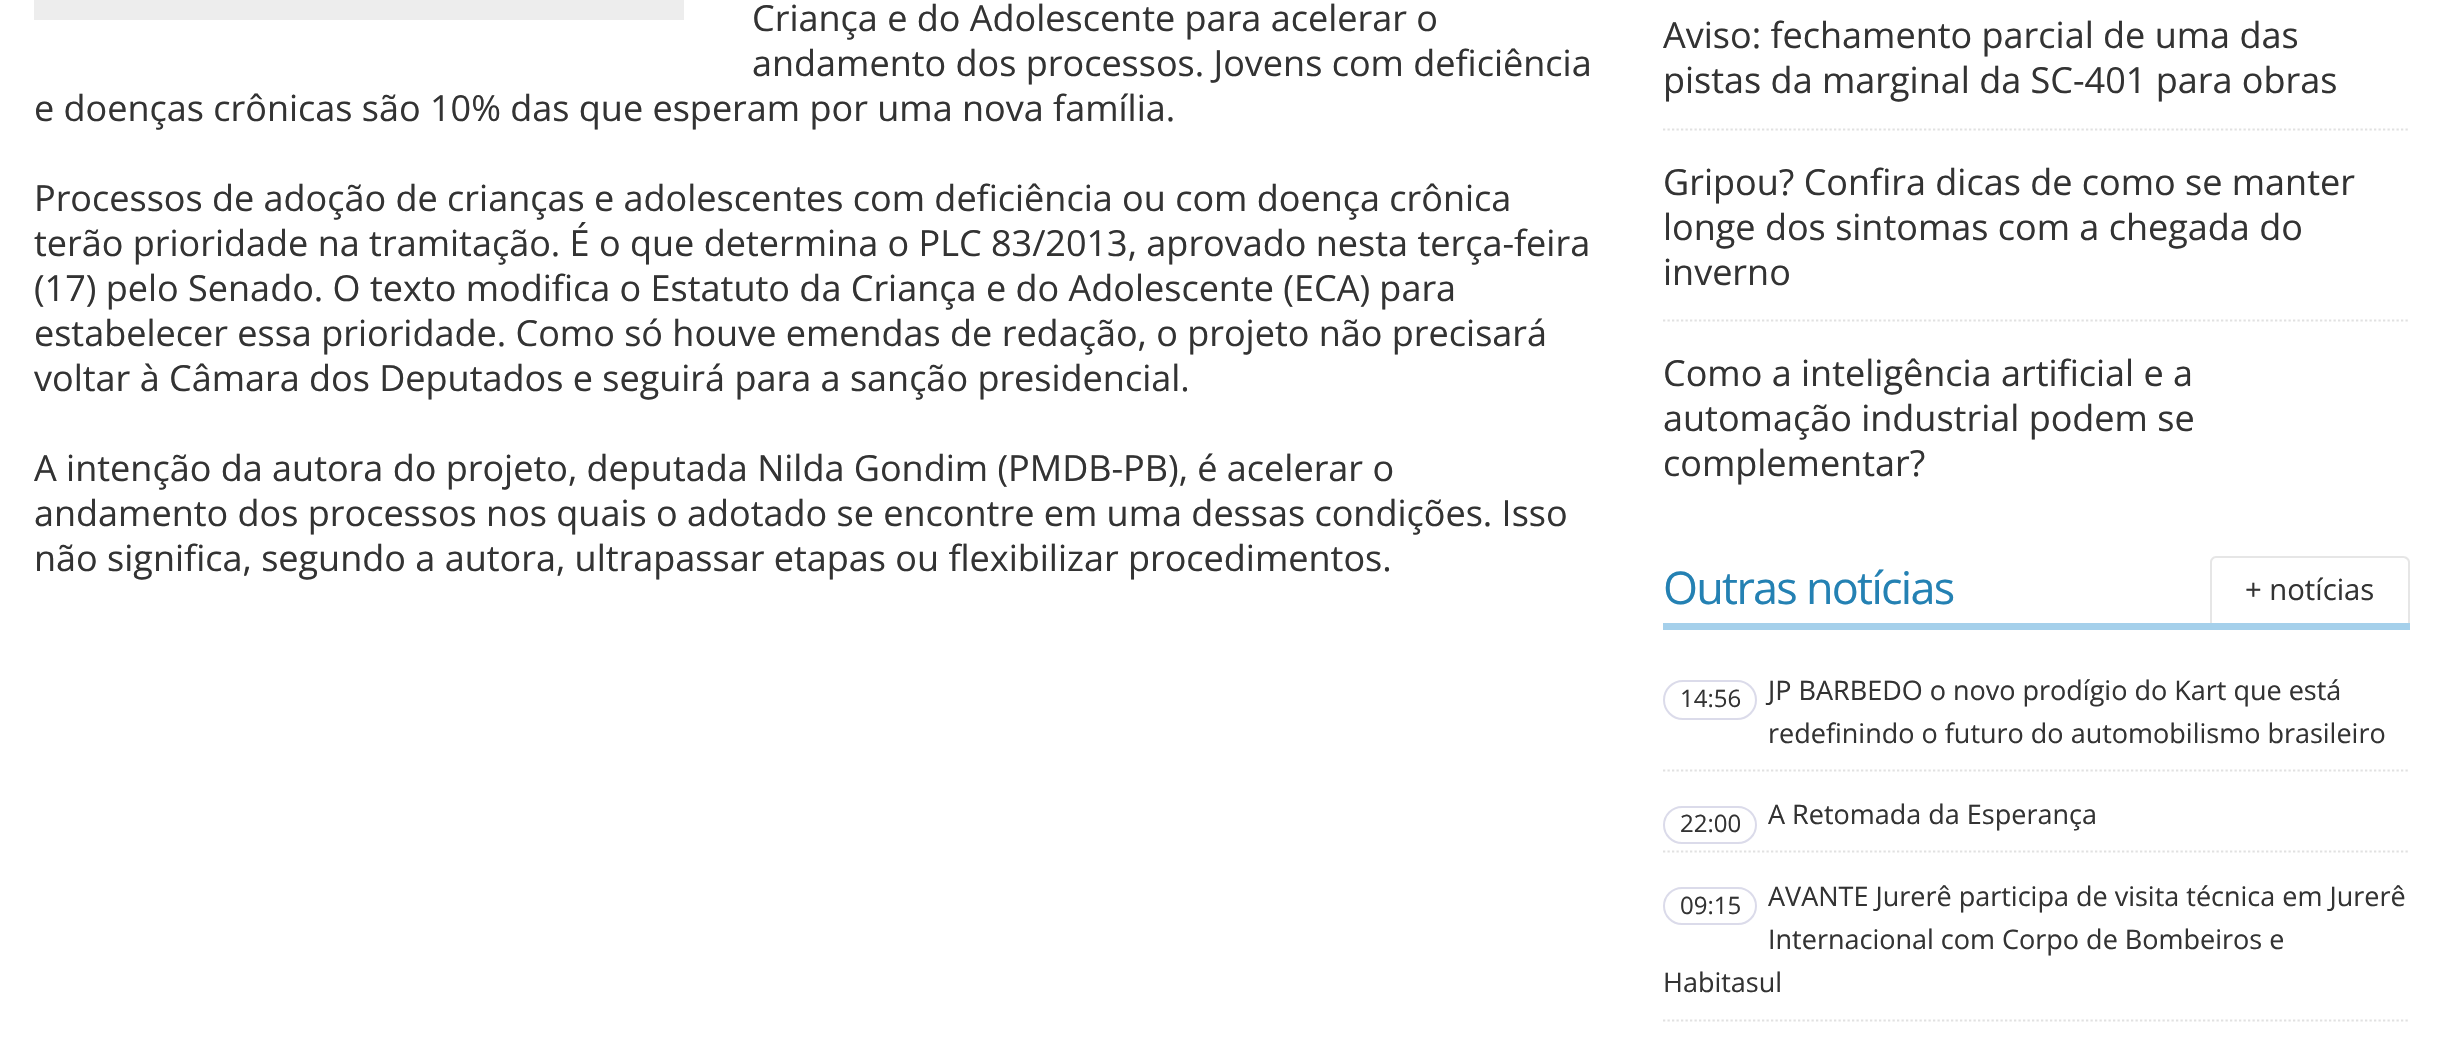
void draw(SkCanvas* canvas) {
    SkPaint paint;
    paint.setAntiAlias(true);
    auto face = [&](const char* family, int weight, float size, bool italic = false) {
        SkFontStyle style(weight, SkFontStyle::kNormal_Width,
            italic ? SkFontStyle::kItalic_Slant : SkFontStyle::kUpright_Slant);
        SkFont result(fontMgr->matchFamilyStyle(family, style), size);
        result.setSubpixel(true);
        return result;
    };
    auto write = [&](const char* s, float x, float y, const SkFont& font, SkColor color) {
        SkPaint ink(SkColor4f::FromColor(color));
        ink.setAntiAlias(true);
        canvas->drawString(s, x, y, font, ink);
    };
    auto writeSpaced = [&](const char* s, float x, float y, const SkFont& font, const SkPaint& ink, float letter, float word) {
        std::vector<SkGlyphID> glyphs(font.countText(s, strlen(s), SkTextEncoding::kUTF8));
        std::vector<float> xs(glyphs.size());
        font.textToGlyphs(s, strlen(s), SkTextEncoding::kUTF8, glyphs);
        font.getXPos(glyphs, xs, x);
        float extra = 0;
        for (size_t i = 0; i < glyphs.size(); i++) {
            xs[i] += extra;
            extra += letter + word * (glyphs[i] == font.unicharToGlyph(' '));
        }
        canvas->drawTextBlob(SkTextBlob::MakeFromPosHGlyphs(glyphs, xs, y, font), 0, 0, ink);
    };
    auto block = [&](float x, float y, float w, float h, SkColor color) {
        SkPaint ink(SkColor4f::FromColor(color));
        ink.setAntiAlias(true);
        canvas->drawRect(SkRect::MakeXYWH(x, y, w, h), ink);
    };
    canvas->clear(SK_ColorWHITE);
    block(34, 0, 650, 20, SkColorSetRGB(237, 237, 237));
    auto kFont1 = face("Open Sans", 400, 36);
    write("Criança e do Adolescente para acelerar o", 752, 31, kFont1, SkColorSetRGB(51, 51, 51));
    write("andamento dos processos. Jovens com deficiência", 752, 76, kFont1, SkColorSetRGB(51, 51, 51));
    write("e doenças crônicas são 10% das que esperam por uma nova família.", 34, 121, kFont1, SkColorSetRGB(51, 51, 51));
    write("Processos de adoção de crianças e adolescentes com deficiência ou com doença crônica", 34, 211, kFont1, SkColorSetRGB(51, 51, 51));
    write("terão prioridade na tramitação. É o que determina o PLC 83/2013, aprovado nesta terça-feira", 34, 256, kFont1, SkColorSetRGB(51, 51, 51));
    write("(17) pelo Senado. O texto modifica o Estatuto da Criança e do Adolescente (ECA) para", 34, 301, kFont1, SkColorSetRGB(51, 51, 51));
    write("estabelecer essa prioridade. Como só houve emendas de redação, o projeto não precisará", 34, 346, kFont1, SkColorSetRGB(51, 51, 51));
    write("voltar à Câmara dos Deputados e seguirá para a sanção presidencial.", 34, 391, kFont1, SkColorSetRGB(51, 51, 51));
    write("A intenção da autora do projeto, deputada Nilda Gondim (PMDB-PB), é acelerar o", 34, 481, kFont1, SkColorSetRGB(51, 51, 51));
    write("andamento dos processos nos quais o adotado se encontre em uma dessas condições. Isso", 34, 526, kFont1, SkColorSetRGB(51, 51, 51));
    write("não significa, segundo a autora, ultrapassar etapas ou flexibilizar procedimentos.", 34, 571, kFont1, SkColorSetRGB(51, 51, 51));
    paint.setStyle(SkPaint::kStroke_Style);
    paint.setStrokeWidth(2.2f);
    paint.setColor(SkColorSetRGB(225, 225, 225));
    paint.setPathEffect(SkDashPathEffect::Make({{2.25f, 2.25f}}, 0));
    canvas->drawPath(SkPathBuilder().moveTo(1663, 129.5f).lineTo(2410, 129.5f).detach(), paint);
    paint.setPathEffect(nullptr);
    write("Aviso: fechamento parcial de uma das", 1663, 48, kFont1, SkColorSetRGB(51, 51, 51));
    write("pistas da marginal da SC-401 para obras", 1663, 93, kFont1, SkColorSetRGB(51, 51, 51));
    paint.setPathEffect(SkDashPathEffect::Make({{2.25f, 2.25f}}, 0));
    canvas->drawPath(SkPathBuilder().moveTo(1663, 320.5f).lineTo(2410, 320.5f).detach(), paint);
    paint.setPathEffect(nullptr);
    write("Gripou? Confira dicas de como se manter", 1663, 195, kFont1, SkColorSetRGB(51, 51, 51));
    write("longe dos sintomas com a chegada do", 1663, 240, kFont1, SkColorSetRGB(51, 51, 51));
    write("inverno", 1663, 285, kFont1, SkColorSetRGB(51, 51, 51));
    write("Como a inteligência artificial e a", 1663, 386, kFont1, SkColorSetRGB(51, 51, 51));
    write("automação industrial podem se", 1663, 431, kFont1, SkColorSetRGB(51, 51, 51));
    write("complementar?", 1663, 476, kFont1, SkColorSetRGB(51, 51, 51));
    auto kFont2 = face("Open Sans", 400, 45);
    paint.setStyle(SkPaint::kFill_Style);
    paint.setColor(SkColorSetRGB(36, 129, 179));
    writeSpaced("Outras notícias", 1663, 604, kFont2, paint, -1.75f, 0);
    paint.setColor(SkColorSetRGB(230, 230, 230));
    canvas->drawPath(SkPathBuilder(SkPathFillType::kEvenOdd).moveTo(2216, 556).lineTo(2403, 556).cubicTo(2407, 556, 2410, 559, 2410, 562).lineTo(2410, 623).lineTo(2210, 623).lineTo(2210, 562).cubicTo(2210, 559, 2213, 556, 2216, 556).close().moveTo(2216, 558).lineTo(2403, 558).cubicTo(2405, 558, 2408, 560, 2408, 562).lineTo(2408, 623).lineTo(2212, 623).lineTo(2212, 562).cubicTo(2212, 560, 2214, 558, 2216, 558).close().detach(), paint);
    auto kFont3 = face("Open Sans", 400, 29.25f);
    write("+ notícias", 2245, 600, kFont3, SkColorSetRGB(51, 51, 51));
    block(1663, 623, 747, 7, SkColorSetRGB(165, 208, 235));
    paint.setStyle(SkPaint::kStroke_Style);
    paint.setColor(SkColorSetRGB(225, 225, 225));
    paint.setPathEffect(SkDashPathEffect::Make({{2.25f, 2.25f}}, 0));
    canvas->drawPath(SkPathBuilder().moveTo(1663, 770.5f).lineTo(2410, 770.5f).detach(), paint);
    paint.setPathEffect(nullptr);
    paint.setStrokeWidth(2);
    paint.setColor(SkColorSetRGB(219, 219, 234));
    canvas->drawRoundRect(SkRect::MakeXYWH(1664, 681, 92, 38), 19, 19, paint);
    auto kFont4 = face("Open Sans", 400, 24);
    write("14:56", 1680, 707, kFont4, SkColorSetRGB(51, 51, 51));
    auto kFont5 = face("Open Sans", 400, 27);
    write("JP BARBEDO o novo prodígio do Kart que está", 1768, 700, kFont5, SkColorSetRGB(51, 51, 51));
    write("redefinindo o futuro do automobilismo brasileiro", 1768, 743, kFont5, SkColorSetRGB(51, 51, 51));
    paint.setStrokeWidth(2.2f);
    paint.setColor(SkColorSetRGB(225, 225, 225));
    paint.setPathEffect(SkDashPathEffect::Make({{2.25f, 2.25f}}, 0));
    canvas->drawPath(SkPathBuilder().moveTo(1663, 851.5f).lineTo(2410, 851.5f).detach(), paint);
    paint.setPathEffect(nullptr);
    paint.setStrokeWidth(2);
    paint.setColor(SkColorSetRGB(219, 219, 234));
    canvas->drawRoundRect(SkRect::MakeXYWH(1664, 807, 92, 36), 18, 18, paint);
    write("22:00", 1680, 832, kFont4, SkColorSetRGB(51, 51, 51));
    write("A Retomada da Esperança", 1768, 824, kFont5, SkColorSetRGB(51, 51, 51));
    paint.setStrokeWidth(2.2f);
    paint.setColor(SkColorSetRGB(225, 225, 225));
    paint.setPathEffect(SkDashPathEffect::Make({{2.25f, 2.25f}}, 0));
    canvas->drawPath(SkPathBuilder().moveTo(1663, 1020.5f).lineTo(2410, 1020.5f).detach(), paint);
    paint.setPathEffect(nullptr);
    paint.setStrokeWidth(2);
    paint.setColor(SkColorSetRGB(219, 219, 234));
    canvas->drawRoundRect(SkRect::MakeXYWH(1664, 888, 92, 36), 18, 18, paint);
    write("09:15", 1680, 914, kFont4, SkColorSetRGB(51, 51, 51));
    write("AVANTE Jurerê participa de visita técnica em Jurerê", 1768, 906, kFont5, SkColorSetRGB(51, 51, 51));
    write("Internacional com Corpo de Bombeiros e", 1768, 949, kFont5, SkColorSetRGB(51, 51, 51));
    write("Habitasul", 1663, 992, kFont5, SkColorSetRGB(51, 51, 51));
}
